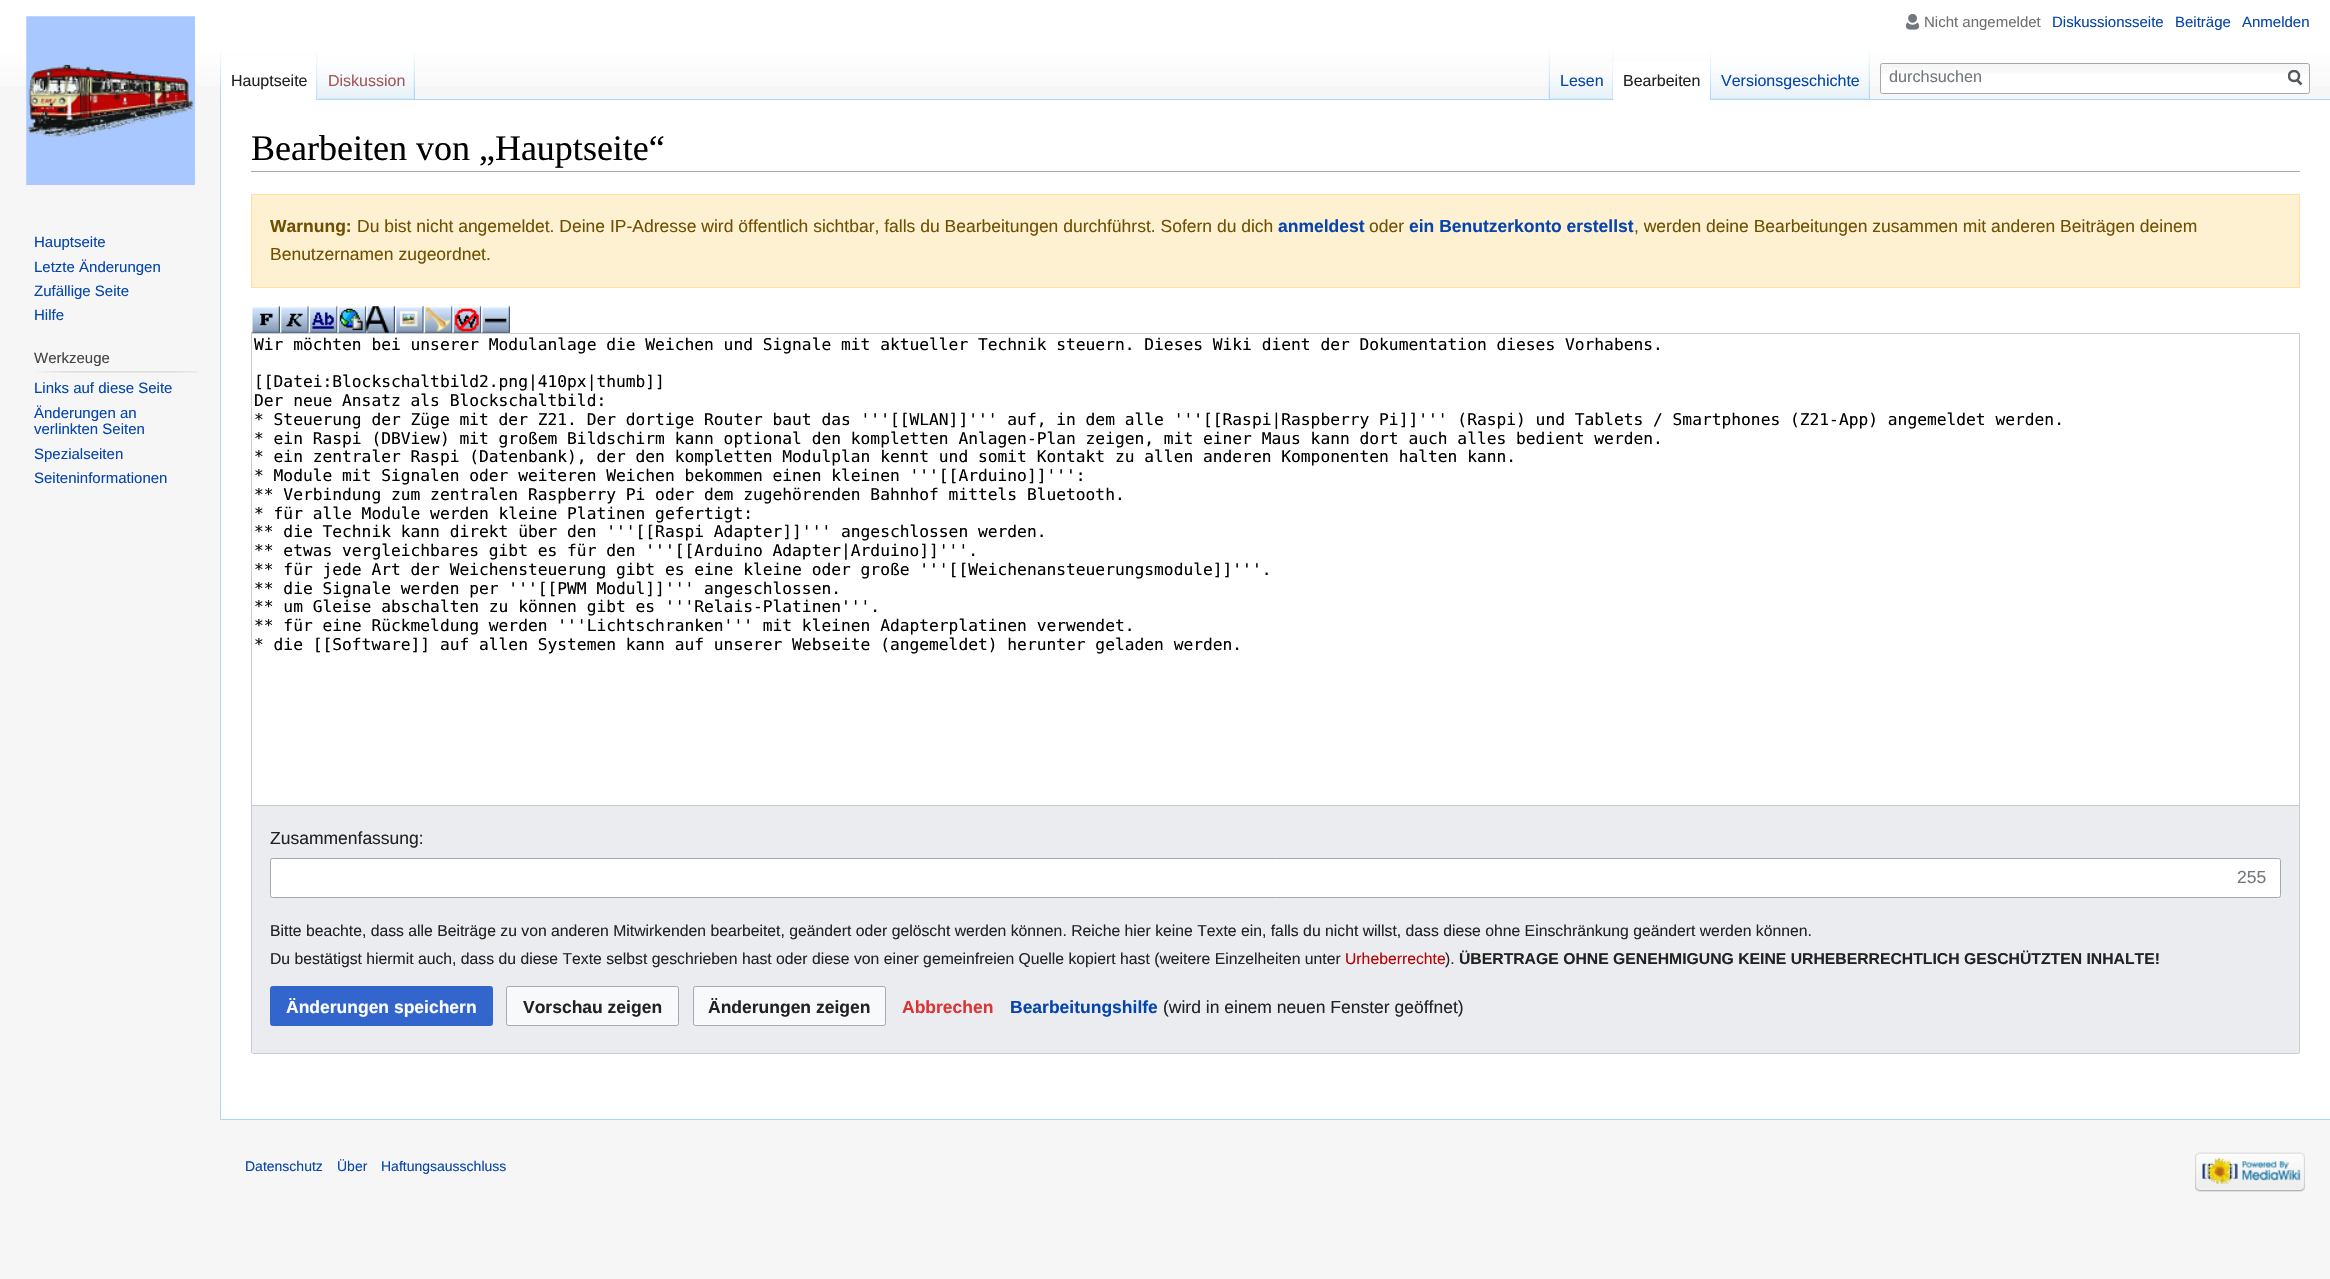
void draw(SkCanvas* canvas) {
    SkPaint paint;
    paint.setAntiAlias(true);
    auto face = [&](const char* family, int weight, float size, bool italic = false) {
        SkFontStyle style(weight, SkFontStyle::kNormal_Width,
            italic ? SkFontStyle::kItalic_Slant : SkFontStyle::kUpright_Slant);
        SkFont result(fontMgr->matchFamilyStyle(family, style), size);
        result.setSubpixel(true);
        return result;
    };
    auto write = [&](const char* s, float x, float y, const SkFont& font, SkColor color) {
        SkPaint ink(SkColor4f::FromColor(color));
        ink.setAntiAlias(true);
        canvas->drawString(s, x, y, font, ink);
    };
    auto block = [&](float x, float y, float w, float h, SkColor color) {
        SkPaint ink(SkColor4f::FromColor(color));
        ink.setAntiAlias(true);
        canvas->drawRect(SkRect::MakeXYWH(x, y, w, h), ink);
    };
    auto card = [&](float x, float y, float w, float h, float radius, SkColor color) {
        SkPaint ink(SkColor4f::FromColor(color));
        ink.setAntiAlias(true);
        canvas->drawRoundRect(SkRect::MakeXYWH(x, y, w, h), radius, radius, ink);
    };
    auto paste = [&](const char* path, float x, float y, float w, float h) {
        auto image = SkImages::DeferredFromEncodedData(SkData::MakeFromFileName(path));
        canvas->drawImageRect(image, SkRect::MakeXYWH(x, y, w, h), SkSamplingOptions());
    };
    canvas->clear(SkColorSetRGB(246, 246, 246));
    {
        const SkColor colors[] = {SK_ColorWHITE, SkColorSetRGB(246, 246, 246)};
        const float stops[] = {0.5f, 1};
        const SkPoint ends[] = {{1165, 0}, {1165, 100}};
        paint.setShader(SkGradientShader::MakeLinear(ends, colors, stops, 2, SkTileMode::kClamp));
        paint.setAlpha(255);
    }
    canvas->drawRect(SkRect::MakeXYWH(0, 0, 2330, 86), paint);
    paste("pic1.png", 1905, 14, 15, 16);
    auto kFont1 = face("Liberation Sans", 400, 15);
    write("Nicht angemeldet", 1924, 27, kFont1, SkColorSetRGB(112, 112, 112));
    write("Diskussionsseite", 2052, 27, kFont1, SkColorSetRGB(6, 69, 173));
    write("Beiträge", 2175, 27, kFont1, SkColorSetRGB(6, 69, 173));
    write("Anmelden", 2242, 27, kFont1, SkColorSetRGB(6, 69, 173));
    paste("pic2.png", 220, 50, 2, 49);
    block(221, 58, 97, 42, SK_ColorWHITE);
    paste("pic3.png", 316, 52, 2, 48);
    auto kFont2 = face("Liberation Sans", 400, 16);
    write("Hauptseite", 231, 86, kFont2, SkColorSetRGB(34, 34, 34));
    paste("pic4.png", 317, 50, 98, 50);
    paste("pic5.png", 413, 50, 2, 49);
    write("Diskussion", 328, 86, kFont2, SkColorSetRGB(165, 88, 88));
    paste("pic6.png", 1548, 50, 2, 49);
    paste("pic7.png", 1550, 77, 63, 22);
    paste("pic8.png", 1612, 52, 2, 47);
    write("Lesen", 1560, 86, kFont2, SkColorSetRGB(6, 69, 173));
    block(415, 99, 1915, 1, SkColorSetRGB(167, 215, 249));
    block(1613, 61, 99, 39, SK_ColorWHITE);
    paste("pic9.png", 1710, 50, 2, 50);
    write("Bearbeiten", 1623, 86, kFont2, SkColorSetRGB(34, 34, 34));
    paste("pic10.png", 1711, 50, 159, 50);
    paste("pic5.png", 1868, 50, 2, 49);
    write("Versionsgeschichte", 1721, 86, kFont2, SkColorSetRGB(6, 69, 173));
    card(1880, 63, 430, 31, 2.5f, SK_ColorWHITE);
    paste("pic11.png", 1880, 64, 430, 10);
    paint.setStyle(SkPaint::kStroke_Style);
    paint.setStrokeWidth(1);
    paint.setShader(nullptr);
    paint.setColor(SkColorSetRGB(162, 169, 177));
    canvas->drawRoundRect(SkRect::MakeXYWH(1880.5f, 63.5f, 429, 30), 2, 2, paint);
    auto kFont3 = face("Liberation Sans", 400, 16.25f);
    write("durchsuchen", 1889, 82, kFont3, SkColorSetRGB(114, 119, 125));
    paint.setStrokeWidth(2.5f);
    paint.setColor(SkColorSetRGB(84, 89, 93));
    canvas->drawPath(SkPathBuilder().moveTo(2301.5f, 84.5f).lineTo(2296.5f, 79.5f).detach(), paint);
    canvas->save();
    canvas->clipRect(SkRect::MakeXYWH(2288, 70, 15, 16));
    canvas->drawCircle(2294, 76, 5, paint);
    canvas->restore();
    paste("pic12.png", 26, 16, 169, 169);
    write("Hauptseite", 34, 247, kFont1, SkColorSetRGB(6, 69, 173));
    write("Letzte Änderungen", 34, 272, kFont1, SkColorSetRGB(6, 69, 173));
    write("Zufällige Seite", 34, 296, kFont1, SkColorSetRGB(6, 69, 173));
    write("Hilfe", 34, 320, kFont1, SkColorSetRGB(6, 69, 173));
    write("Werkzeuge", 34, 363, kFont1, SkColorSetRGB(68, 68, 68));
    paste("pic13.png", 37, 371, 161, 2);
    write("Links auf diese Seite", 34, 393, kFont1, SkColorSetRGB(6, 69, 173));
    write("Änderungen an", 34, 418, kFont1, SkColorSetRGB(6, 69, 173));
    write("verlinkten Seiten", 34, 434, kFont1, SkColorSetRGB(6, 69, 173));
    write("Spezialseiten", 34, 459, kFont1, SkColorSetRGB(6, 69, 173));
    write("Seiteninformationen", 34, 483, kFont1, SkColorSetRGB(6, 69, 173));
    block(221, 100, 2109, 1019, SK_ColorWHITE);
    block(220, 1119, 2110, 1, SkColorSetRGB(167, 215, 249));
    block(220, 99, 1, 1021, SkColorSetRGB(167, 215, 249));
    block(251, 171, 2049, 1, SkColorSetRGB(162, 169, 177));
    auto kFont4 = face("Liberation Serif", 400, 36);
    write("Bearbeiten von „Hauptseite“", 251, 160, kFont4, SK_ColorBLACK);
    paint.setStyle(SkPaint::kFill_Style);
    paint.setColor(SkColorSetRGB(253, 241, 209));
    canvas->drawRect(SkRect::MakeXYWH(251.5f, 194.5f, 2048, 93), paint);
    paint.setStyle(SkPaint::kStroke_Style);
    paint.setStrokeWidth(1);
    paint.setColor(SkColorSetRGB(253, 226, 155));
    canvas->drawRect(SkRect::MakeXYWH(251.5f, 194.5f, 2048, 93), paint);
    auto kFont5 = face("Liberation Sans", 700, 17.5f);
    write("Warnung:", 270, 232, kFont5, SkColorSetRGB(112, 80, 0));
    auto kFont6 = face("Liberation Sans", 400, 17.5f);
    write("Du bist nicht angemeldet. Deine IP-Adresse wird öffentlich sichtbar, falls du Bearbeitungen durchführst. Sofern du dich", 357, 232, kFont6, SkColorSetRGB(112, 80, 0));
    write("anmeldest", 1278, 232, kFont5, SkColorSetRGB(6, 69, 173));
    write("oder", 1369, 232, kFont6, SkColorSetRGB(112, 80, 0));
    write("ein Benutzerkonto erstellst", 1409, 232, kFont5, SkColorSetRGB(6, 69, 173));
    write(", werden deine Bearbeitungen zusammen mit anderen Beiträgen deinem", 1634, 232, kFont6, SkColorSetRGB(112, 80, 0));
    write("Benutzernamen zugeordnet.", 270, 260, kFont6, SkColorSetRGB(112, 80, 0));
    paste("pic14.png", 251, 306, 29, 27);
    paste("pic15.png", 280, 306, 29, 27);
    paste("pic16.png", 308, 306, 30, 27);
    paste("pic17.png", 337, 306, 30, 27);
    paste("pic18.png", 366, 306, 29, 27);
    paste("pic19.png", 395, 306, 29, 27);
    paste("pic20.png", 423, 306, 30, 27);
    paste("pic21.png", 452, 306, 30, 27);
    paste("pic22.png", 481, 306, 29, 27);
    paint.setColor(SkColorSetRGB(200, 204, 209));
    canvas->drawRect(SkRect::MakeXYWH(251.5f, 333.5f, 2048, 472), paint);
    auto kFont7 = face("DejaVu Sans Mono", 400, 16.25f);
    write("Wir möchten bei unserer Modulanlage die Weichen und Signale mit aktueller Technik steuern. Dieses Wiki dient der Dokumentation dieses Vorhabens.", 254, 350, kFont7, SK_ColorBLACK);
    write("[[Datei:Blockschaltbild2.png|410px|thumb]]", 254, 387, kFont7, SK_ColorBLACK);
    write("Der neue Ansatz als Blockschaltbild:", 254, 406, kFont7, SK_ColorBLACK);
    write("* Steuerung der Züge mit der Z21. Der dortige Router baut das '''[[WLAN]]''' auf, in dem alle '''[[Raspi|Raspberry Pi]]''' (Raspi) und Tablets / Smartphones (Z21-App) angemeldet werden.", 254, 425, kFont7, SK_ColorBLACK);
    write("* ein Raspi (DBView) mit großem Bildschirm kann optional den kompletten Anlagen-Plan zeigen, mit einer Maus kann dort auch alles bedient werden.", 254, 444, kFont7, SK_ColorBLACK);
    write("* ein zentraler Raspi (Datenbank), der den kompletten Modulplan kennt und somit Kontakt zu allen anderen Komponenten halten kann.", 254, 462, kFont7, SK_ColorBLACK);
    write("* Module mit Signalen oder weiteren Weichen bekommen einen kleinen '''[[Arduino]]''':", 254, 481, kFont7, SK_ColorBLACK);
    write("** Verbindung zum zentralen Raspberry Pi oder dem zugehörenden Bahnhof mittels Bluetooth.", 254, 500, kFont7, SK_ColorBLACK);
    write("* für alle Module werden kleine Platinen gefertigt:", 254, 519, kFont7, SK_ColorBLACK);
    write("** die Technik kann direkt über den '''[[Raspi Adapter]]''' angeschlossen werden.", 254, 537, kFont7, SK_ColorBLACK);
    write("** etwas vergleichbares gibt es für den '''[[Arduino Adapter|Arduino]]'''.", 254, 556, kFont7, SK_ColorBLACK);
    write("** für jede Art der Weichensteuerung gibt es eine kleine oder große '''[[Weichenansteuerungsmodule]]'''.", 254, 575, kFont7, SK_ColorBLACK);
    write("** die Signale werden per '''[[PWM Modul]]''' angeschlossen.", 254, 594, kFont7, SK_ColorBLACK);
    write("** um Gleise abschalten zu können gibt es '''Relais-Platinen'''.", 254, 612, kFont7, SK_ColorBLACK);
    write("** für eine Rückmeldung werden '''Lichtschranken''' mit kleinen Adapterplatinen verwendet.", 254, 631, kFont7, SK_ColorBLACK);
    write("* die [[Software]] auf allen Systemen kann auf unserer Webseite (angemeldet) herunter geladen werden.", 254, 650, kFont7, SK_ColorBLACK);
    paint.setStyle(SkPaint::kFill_Style);
    paint.setColor(SkColorSetRGB(234, 236, 240));
    canvas->drawPath(SkPathBuilder().moveTo(251, 806).lineTo(2300, 806).lineTo(2300, 1051.5f).cubicTo(2300, 1053, 2299, 1054, 2297.5f, 1054).lineTo(253.5f, 1054).cubicTo(252, 1054, 251, 1053, 251, 1051.5f).close().detach(), paint);
    block(2299, 806, 1, 247, SkColorSetRGB(200, 204, 209));
    block(253, 1053, 2046, 1, SkColorSetRGB(200, 204, 209));
    block(251, 806, 1, 247, SkColorSetRGB(200, 204, 209));
    write("Zusammenfassung:", 270, 844, kFont6, SkColorSetRGB(34, 34, 34));
    paint.setColor(SK_ColorWHITE);
    canvas->drawRoundRect(SkRect::MakeXYWH(270.5f, 858.5f, 2010, 39), 2, 2, paint);
    paint.setStyle(SkPaint::kStroke_Style);
    paint.setColor(SkColorSetRGB(162, 169, 177));
    canvas->drawRoundRect(SkRect::MakeXYWH(270.5f, 858.5f, 2010, 39), 2, 2, paint);
    write("255", 2237, 883, kFont6, SkColorSetRGB(114, 119, 125));
    auto kFont8 = face("Liberation Sans", 400, 15.75f);
    write("Bitte beachte, dass alle Beiträge zu von anderen Mitwirkenden bearbeitet, geändert oder gelöscht werden können. Reiche hier keine Texte ein, falls du nicht willst, dass diese ohne Einschränkung geändert werden können.", 270, 936, kFont8, SkColorSetRGB(34, 34, 34));
    write("Du bestätigst hiermit auch, dass du diese Texte selbst geschrieben hast oder diese von einer gemeinfreien Quelle kopiert hast (weitere Einzelheiten unter", 270, 964, kFont8, SkColorSetRGB(34, 34, 34));
    write("Urheberrechte", 1345, 964, kFont8, SkColorSetRGB(186, 0, 0));
    write(").", 1445, 964, kFont8, SkColorSetRGB(34, 34, 34));
    auto kFont9 = face("Liberation Sans", 700, 15.75f);
    write("ÜBERTRAGE OHNE GENEHMIGUNG KEINE URHEBERRECHTLICH GESCHÜTZTEN INHALTE!", 1459, 964, kFont9, SkColorSetRGB(34, 34, 34));
    paint.setStyle(SkPaint::kFill_Style);
    paint.setColor(SkColorSetRGB(51, 102, 204));
    canvas->drawRoundRect(SkRect::MakeXYWH(270.5f, 986.5f, 222, 39), 2, 2, paint);
    paint.setStyle(SkPaint::kStroke_Style);
    canvas->drawRoundRect(SkRect::MakeXYWH(270.5f, 986.5f, 222, 39), 2, 2, paint);
    write("Änderungen speichern", 286, 1013, kFont5, SK_ColorWHITE);
    paint.setStyle(SkPaint::kFill_Style);
    paint.setColor(SkColorSetRGB(248, 249, 250));
    canvas->drawRoundRect(SkRect::MakeXYWH(506.5f, 986.5f, 172, 39), 2, 2, paint);
    paint.setStyle(SkPaint::kStroke_Style);
    paint.setColor(SkColorSetRGB(162, 169, 177));
    canvas->drawRoundRect(SkRect::MakeXYWH(506.5f, 986.5f, 172, 39), 2, 2, paint);
    write("Vorschau zeigen", 523, 1013, kFont5, SkColorSetRGB(34, 34, 34));
    paint.setStyle(SkPaint::kFill_Style);
    paint.setColor(SkColorSetRGB(248, 249, 250));
    canvas->drawRoundRect(SkRect::MakeXYWH(693.5f, 986.5f, 192, 39), 2, 2, paint);
    paint.setStyle(SkPaint::kStroke_Style);
    paint.setColor(SkColorSetRGB(162, 169, 177));
    canvas->drawRoundRect(SkRect::MakeXYWH(693.5f, 986.5f, 192, 39), 2, 2, paint);
    write("Änderungen zeigen", 708, 1013, kFont5, SkColorSetRGB(34, 34, 34));
    write("Abbrechen", 902, 1013, kFont5, SkColorSetRGB(221, 51, 51));
    write("Bearbeitungshilfe", 1010, 1013, kFont5, SkColorSetRGB(6, 69, 173));
    write("(wird in einem neuen Fenster geöffnet)", 1163, 1013, kFont6, SkColorSetRGB(34, 34, 34));
    auto kFont10 = face("Liberation Sans", 400, 14);
    write("Datenschutz", 245, 1171, kFont10, SkColorSetRGB(6, 69, 173));
    write("Über", 337, 1171, kFont10, SkColorSetRGB(6, 69, 173));
    write("Haftungsausschluss", 381, 1171, kFont10, SkColorSetRGB(6, 69, 173));
    paste("pic23.png", 2195, 1152, 110, 40);
}
